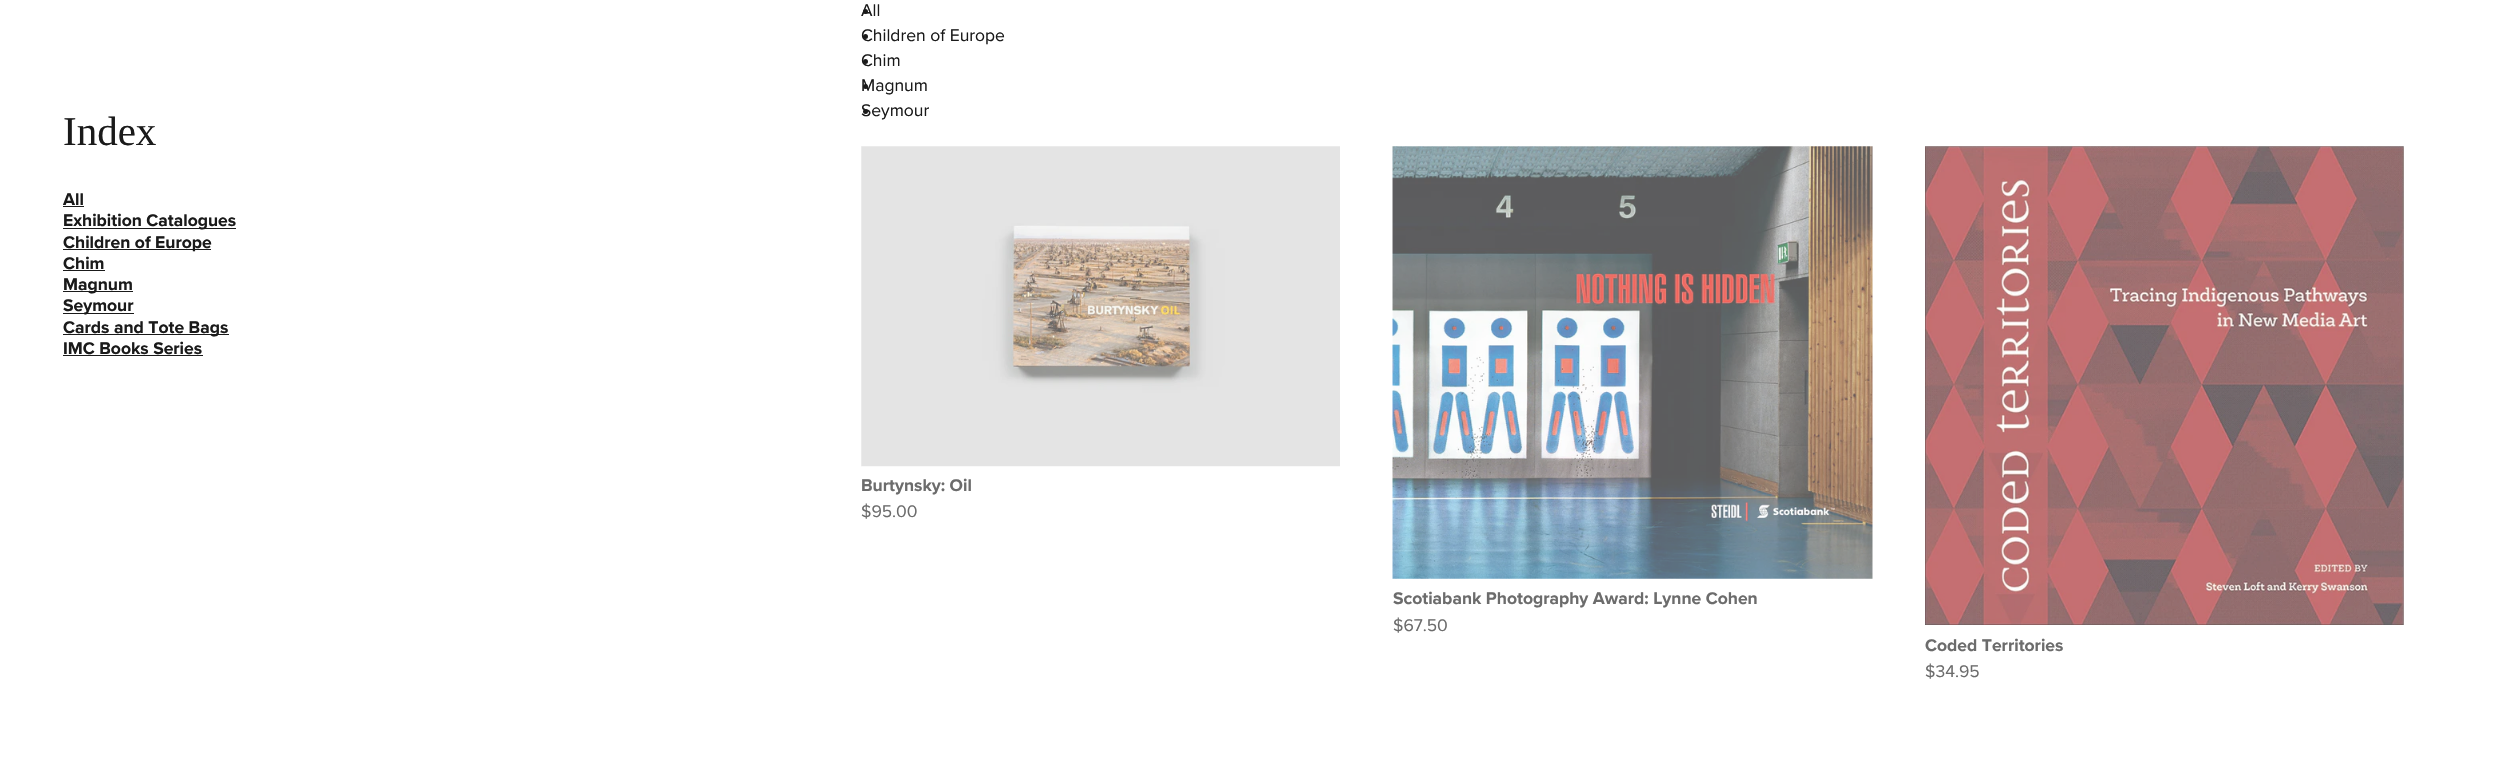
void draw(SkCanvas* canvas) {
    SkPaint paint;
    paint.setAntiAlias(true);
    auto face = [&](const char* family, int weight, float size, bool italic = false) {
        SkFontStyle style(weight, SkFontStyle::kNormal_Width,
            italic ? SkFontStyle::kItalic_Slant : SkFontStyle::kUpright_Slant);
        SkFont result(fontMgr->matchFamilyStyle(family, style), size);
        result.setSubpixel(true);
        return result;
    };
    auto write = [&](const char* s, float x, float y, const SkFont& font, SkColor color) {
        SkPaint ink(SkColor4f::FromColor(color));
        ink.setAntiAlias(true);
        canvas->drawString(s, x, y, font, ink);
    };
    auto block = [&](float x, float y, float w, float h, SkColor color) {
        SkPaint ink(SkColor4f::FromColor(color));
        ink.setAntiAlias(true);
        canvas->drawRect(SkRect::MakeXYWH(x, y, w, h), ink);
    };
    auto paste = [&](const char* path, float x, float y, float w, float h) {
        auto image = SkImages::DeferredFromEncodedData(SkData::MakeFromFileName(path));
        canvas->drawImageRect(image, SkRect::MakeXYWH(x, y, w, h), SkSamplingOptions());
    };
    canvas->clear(SK_ColorWHITE);
    paint.setColor(SkColorSetRGB(26, 26, 26));
    canvas->drawCircle(865.5f, 11.5f, 2.5f, paint);
    auto kFont1 = face("Proxima Nova", 400, 17.5f);
    write("All", 861, 16, kFont1, SkColorSetRGB(26, 26, 26));
    canvas->drawCircle(865.5f, 36.5f, 2.5f, paint);
    write("Children of Europe", 861, 41, kFont1, SkColorSetRGB(26, 26, 26));
    canvas->drawCircle(865.5f, 61.5f, 2.5f, paint);
    write("Chim", 861, 66, kFont1, SkColorSetRGB(26, 26, 26));
    canvas->drawCircle(865.5f, 86.5f, 2.5f, paint);
    write("Magnum", 861, 91, kFont1, SkColorSetRGB(26, 26, 26));
    canvas->drawCircle(865.5f, 111.5f, 2.5f, paint);
    write("Seymour", 861, 116, kFont1, SkColorSetRGB(26, 26, 26));
    auto kFont2 = face("Liberation Serif", 400, 41);
    write("Index", 63, 145, kFont2, SkColorSetRGB(26, 26, 26));
    auto kFont3 = face("Proxima Nova", 700, 17.5f);
    write("All", 63, 205, kFont3, SkColorSetRGB(26, 26, 26));
    block(63, 206, 21, 1, SkColorSetRGB(26, 26, 26));
    block(63, 228, 173, 1, SkColorSetRGB(26, 26, 26));
    write("Exhibition Catalogues", 63, 226, kFont3, SkColorSetRGB(26, 26, 26));
    block(63, 249, 148, 1, SkColorSetRGB(26, 26, 26));
    write("Children of Europe", 63, 248, kFont3, SkColorSetRGB(26, 26, 26));
    write("Chim", 63, 269, kFont3, SkColorSetRGB(26, 26, 26));
    block(63, 270, 42, 1, SkColorSetRGB(26, 26, 26));
    block(63, 291, 70, 1, SkColorSetRGB(26, 26, 26));
    write("Magnum", 63, 290, kFont3, SkColorSetRGB(26, 26, 26));
    block(63, 313, 71, 1, SkColorSetRGB(26, 26, 26));
    write("Seymour", 63, 311, kFont3, SkColorSetRGB(26, 26, 26));
    block(63, 334, 166, 1, SkColorSetRGB(26, 26, 26));
    write("Cards and Tote Bags", 63, 333, kFont3, SkColorSetRGB(26, 26, 26));
    write("IMC Books Series", 63, 354, kFont3, SkColorSetRGB(26, 26, 26));
    block(63, 355, 140, 1, SkColorSetRGB(26, 26, 26));
    paste("pic1.png", 861, 146, 479, 321);
    write("Burtynsky: Oil", 861, 491, kFont3, SkColorSetRGB(108, 108, 108));
    write("$95.00", 861, 517, kFont1, SkColorSetRGB(108, 108, 108));
    paste("pic2.png", 1392, 146, 481, 433);
    write("Scotiabank Photography Award: Lynne Cohen", 1393, 604, kFont3, SkColorSetRGB(108, 108, 108));
    write("$67.50", 1393, 631, kFont1, SkColorSetRGB(108, 108, 108));
    paste("pic3.png", 1925, 146, 479, 479);
    write("Coded Territories", 1925, 651, kFont3, SkColorSetRGB(108, 108, 108));
    write("$34.95", 1925, 677, kFont1, SkColorSetRGB(108, 108, 108));
}
